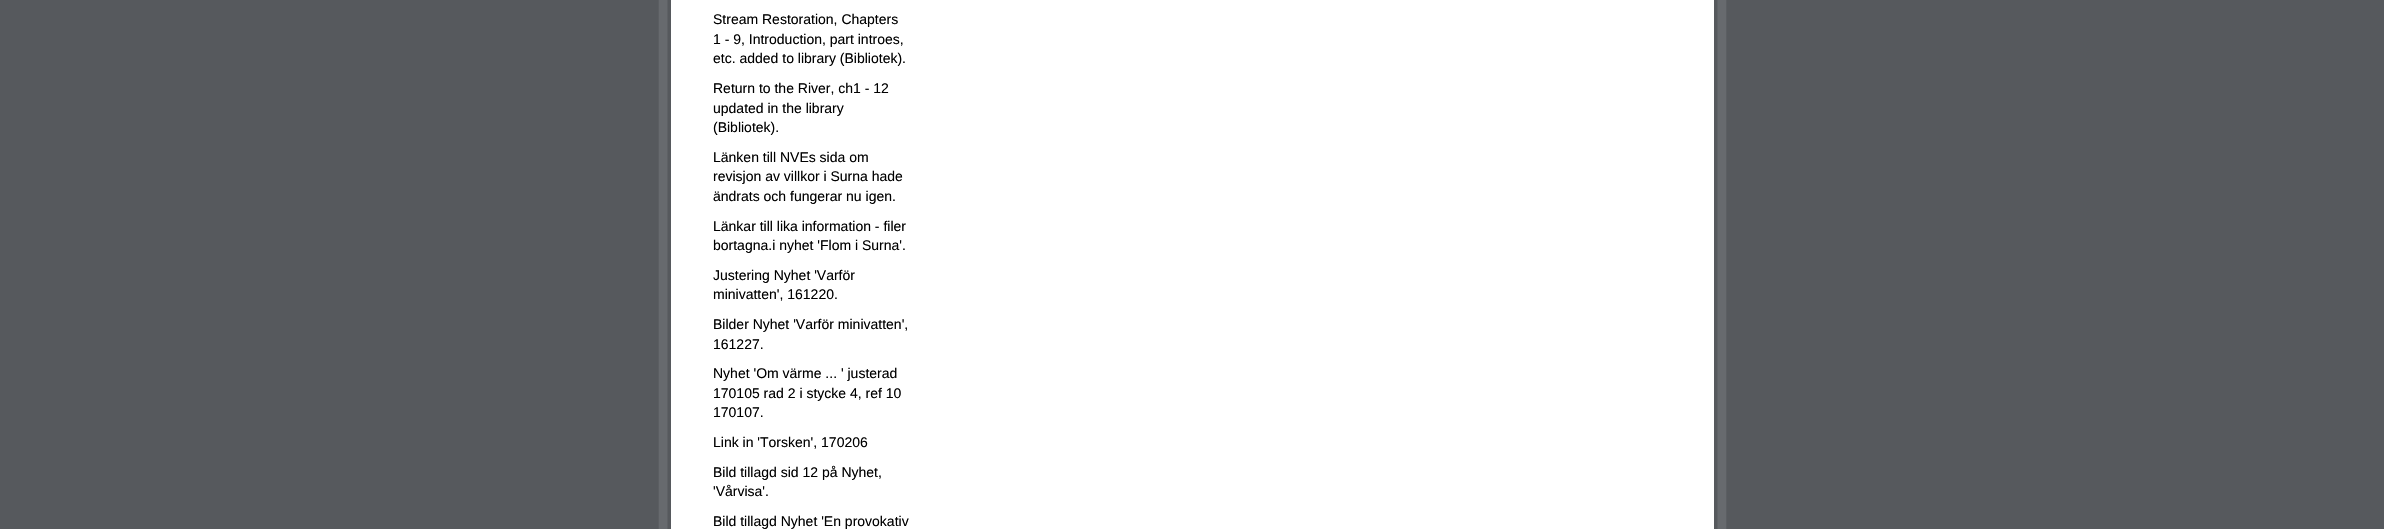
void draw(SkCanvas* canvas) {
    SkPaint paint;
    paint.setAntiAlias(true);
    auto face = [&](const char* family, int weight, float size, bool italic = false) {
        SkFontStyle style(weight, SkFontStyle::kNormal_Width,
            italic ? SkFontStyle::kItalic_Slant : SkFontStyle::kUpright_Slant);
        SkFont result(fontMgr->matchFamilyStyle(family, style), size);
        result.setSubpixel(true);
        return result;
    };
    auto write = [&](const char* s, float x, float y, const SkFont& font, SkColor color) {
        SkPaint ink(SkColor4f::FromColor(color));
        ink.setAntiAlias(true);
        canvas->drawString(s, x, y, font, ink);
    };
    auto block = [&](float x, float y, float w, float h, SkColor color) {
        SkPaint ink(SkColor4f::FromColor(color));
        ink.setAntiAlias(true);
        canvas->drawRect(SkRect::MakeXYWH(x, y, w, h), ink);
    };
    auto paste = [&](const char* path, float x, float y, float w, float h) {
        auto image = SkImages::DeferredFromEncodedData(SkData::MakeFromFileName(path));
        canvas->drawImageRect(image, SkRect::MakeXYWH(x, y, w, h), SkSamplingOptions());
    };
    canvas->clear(SkColorSetRGB(86, 89, 93));
    paste("pic1.png", 658, 0, 1069, 529);
    block(671, 0, 1043, 529, SK_ColorWHITE);
    auto kFont1 = face("Liberation Sans", 400, 14);
    write("Stream Restoration, Chapters", 713, 24, kFont1, SK_ColorBLACK);
    write("1 - 9, Introduction, part introes,", 713, 44, kFont1, SK_ColorBLACK);
    write("etc. added to library (Bibliotek).", 713, 63, kFont1, SK_ColorBLACK);
    write("Return to the River, ch1 - 12", 713, 93, kFont1, SK_ColorBLACK);
    write("updated in the library", 713, 113, kFont1, SK_ColorBLACK);
    write("(Bibliotek).", 713, 132, kFont1, SK_ColorBLACK);
    write("Länken till NVEs sida om", 713, 162, kFont1, SK_ColorBLACK);
    write("revisjon av villkor i Surna hade", 713, 181, kFont1, SK_ColorBLACK);
    write("ändrats och fungerar nu igen.", 713, 201, kFont1, SK_ColorBLACK);
    write("Länkar till lika information - filer", 713, 231, kFont1, SK_ColorBLACK);
    write("bortagna.i nyhet 'Flom i Surna'.", 713, 250, kFont1, SK_ColorBLACK);
    write("Justering Nyhet 'Varför", 713, 280, kFont1, SK_ColorBLACK);
    write("minivatten', 161220.", 713, 299, kFont1, SK_ColorBLACK);
    write("Bilder Nyhet 'Varför minivatten',", 713, 329, kFont1, SK_ColorBLACK);
    write("161227.", 713, 349, kFont1, SK_ColorBLACK);
    write("Nyhet 'Om värme ... ' justerad", 713, 378, kFont1, SK_ColorBLACK);
    write("170105 rad 2 i stycke 4, ref 10", 713, 398, kFont1, SK_ColorBLACK);
    write("170107.", 713, 417, kFont1, SK_ColorBLACK);
    write("Link in 'Torsken', 170206", 713, 447, kFont1, SK_ColorBLACK);
    write("Bild tillagd sid 12 på Nyhet,", 713, 477, kFont1, SK_ColorBLACK);
    write("'Vårvisa'.", 713, 496, kFont1, SK_ColorBLACK);
    write("Bild tillagd Nyhet 'En provokativ", 713, 526, kFont1, SK_ColorBLACK);
}
